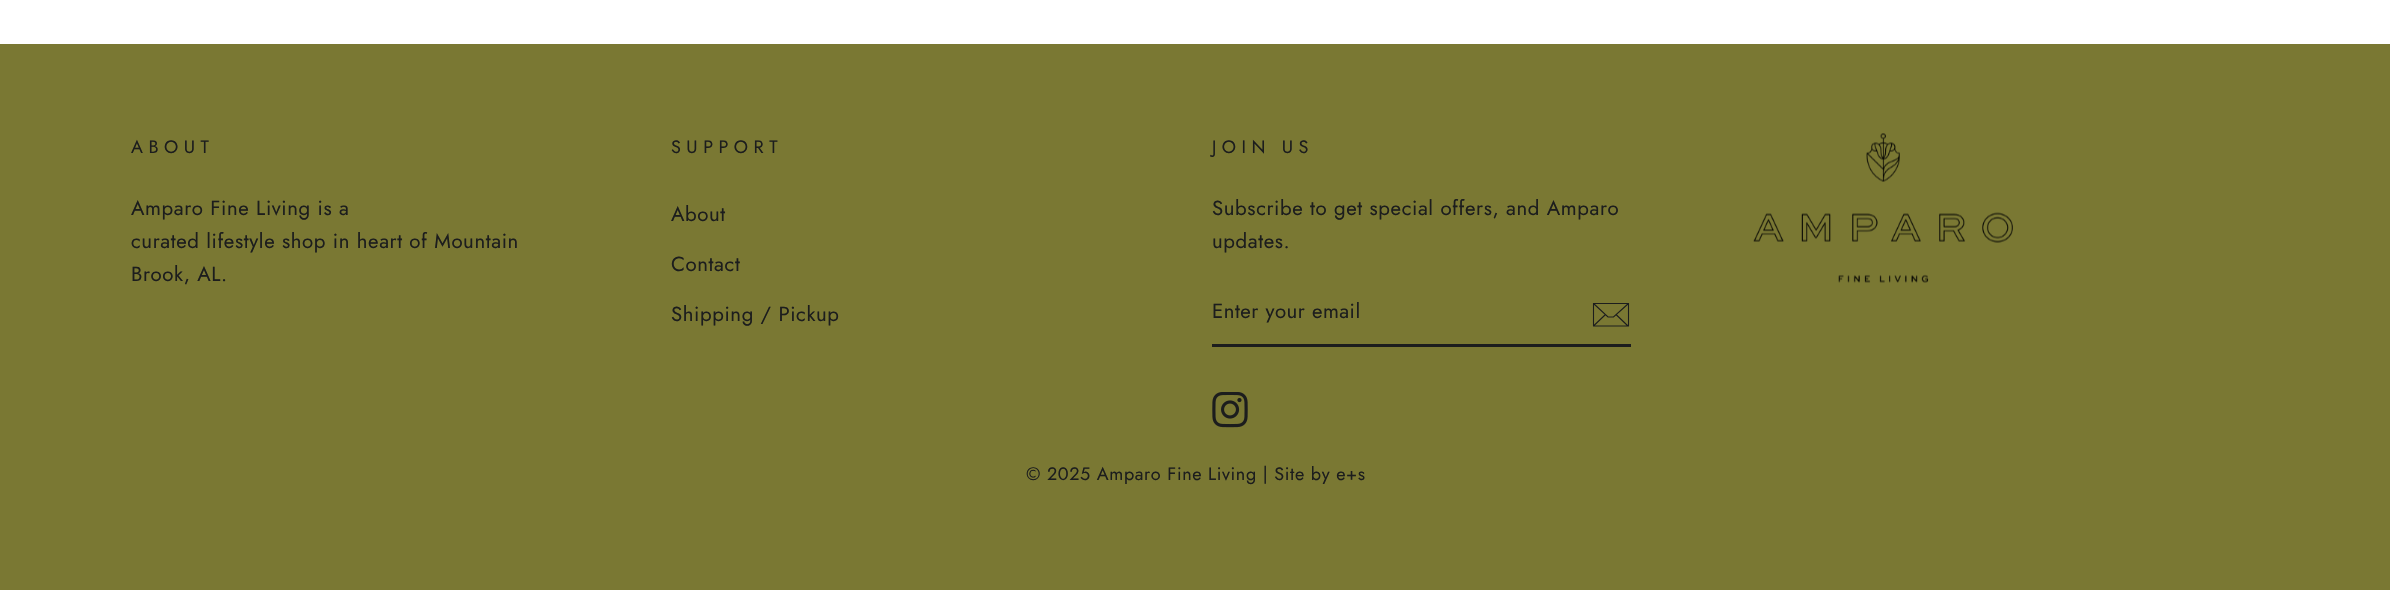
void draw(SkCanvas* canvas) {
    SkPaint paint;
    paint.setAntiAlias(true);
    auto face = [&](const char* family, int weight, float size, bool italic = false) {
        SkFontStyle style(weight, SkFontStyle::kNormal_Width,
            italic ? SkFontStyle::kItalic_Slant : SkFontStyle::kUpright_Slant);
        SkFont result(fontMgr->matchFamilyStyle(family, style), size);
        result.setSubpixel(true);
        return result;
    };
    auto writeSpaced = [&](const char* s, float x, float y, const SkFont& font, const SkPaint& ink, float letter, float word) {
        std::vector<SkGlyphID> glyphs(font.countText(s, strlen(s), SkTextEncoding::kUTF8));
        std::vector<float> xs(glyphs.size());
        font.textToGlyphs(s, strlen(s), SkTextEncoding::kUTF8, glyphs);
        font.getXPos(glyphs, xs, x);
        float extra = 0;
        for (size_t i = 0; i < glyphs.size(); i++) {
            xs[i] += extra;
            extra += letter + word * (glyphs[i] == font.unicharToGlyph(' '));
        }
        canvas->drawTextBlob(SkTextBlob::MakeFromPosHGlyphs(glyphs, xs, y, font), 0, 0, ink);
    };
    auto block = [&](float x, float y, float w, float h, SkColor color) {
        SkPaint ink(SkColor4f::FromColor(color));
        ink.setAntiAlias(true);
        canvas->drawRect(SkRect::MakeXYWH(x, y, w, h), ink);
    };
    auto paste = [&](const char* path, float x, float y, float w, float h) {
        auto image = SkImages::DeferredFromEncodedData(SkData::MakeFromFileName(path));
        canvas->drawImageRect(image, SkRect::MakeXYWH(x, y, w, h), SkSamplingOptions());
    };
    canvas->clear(SK_ColorWHITE);
    block(0, 44, 2390, 546, SkColorSetRGB(122, 120, 51));
    auto kFont1 = face("Jost", 400, 18);
    paint.setColor(SkColorSetRGB(28, 29, 29));
    writeSpaced("ABOUT", 131, 153, kFont1, paint, 5.5f, 0);
    auto kFont2 = face("Jost", 400, 20.4f);
    writeSpaced("Amparo Fine Living is a", 131, 215, kFont2, paint, 0.6f, 0);
    writeSpaced("curated lifestyle shop in heart of Mountain", 131, 248, kFont2, paint, 0.6f, 0);
    writeSpaced("Brook, AL.", 131, 281, kFont2, paint, 0.6f, 0);
    writeSpaced("SUPPORT", 671, 153, kFont1, paint, 5.5f, 0);
    writeSpaced("About", 671, 221, kFont2, paint, 0.6f, 0);
    writeSpaced("Contact", 671, 271, kFont2, paint, 0.6f, 0);
    writeSpaced("Shipping / Pickup", 671, 321, kFont2, paint, 0.6f, 0);
    writeSpaced("JOIN US", 1212, 153, kFont1, paint, 5.5f, 0);
    writeSpaced("Subscribe to get special offers, and Amparo", 1212, 215, kFont2, paint, 0.6f, 0);
    writeSpaced("updates.", 1212, 248, kFont2, paint, 0.6f, 0);
    block(1212, 344, 419, 3, SkColorSetRGB(28, 29, 29));
    writeSpaced("Enter your email", 1212, 318, kFont2, paint, 0.5f, 0);
    paint.setStyle(SkPaint::kStroke_Style);
    paint.setStrokeWidth(1.1f);
    canvas->drawPath(SkPathBuilder().moveTo(1628.5f, 326).lineTo(1593.5f, 326).lineTo(1593.5f, 303.5f).lineTo(1628.5f, 303.5f).close().moveTo(1593.5f, 303.5f).lineTo(1608, 317).lineTo(1613.5f, 317).lineTo(1628.5f, 303.5f).moveTo(1605.5f, 314.5f).lineTo(1594, 325.5f).moveTo(1628, 326).lineTo(1616, 314.5f).detach(), paint);
    paste("pic1.png", 1212, 392, 36, 36);
    paste("pic2.png", 1753, 133, 260, 150);
    paint.setStyle(SkPaint::kFill_Style);
    writeSpaced("© 2025 Amparo Fine Living | Site by e+s", 1026, 480, kFont1, paint, 0.6f, 0);
}
